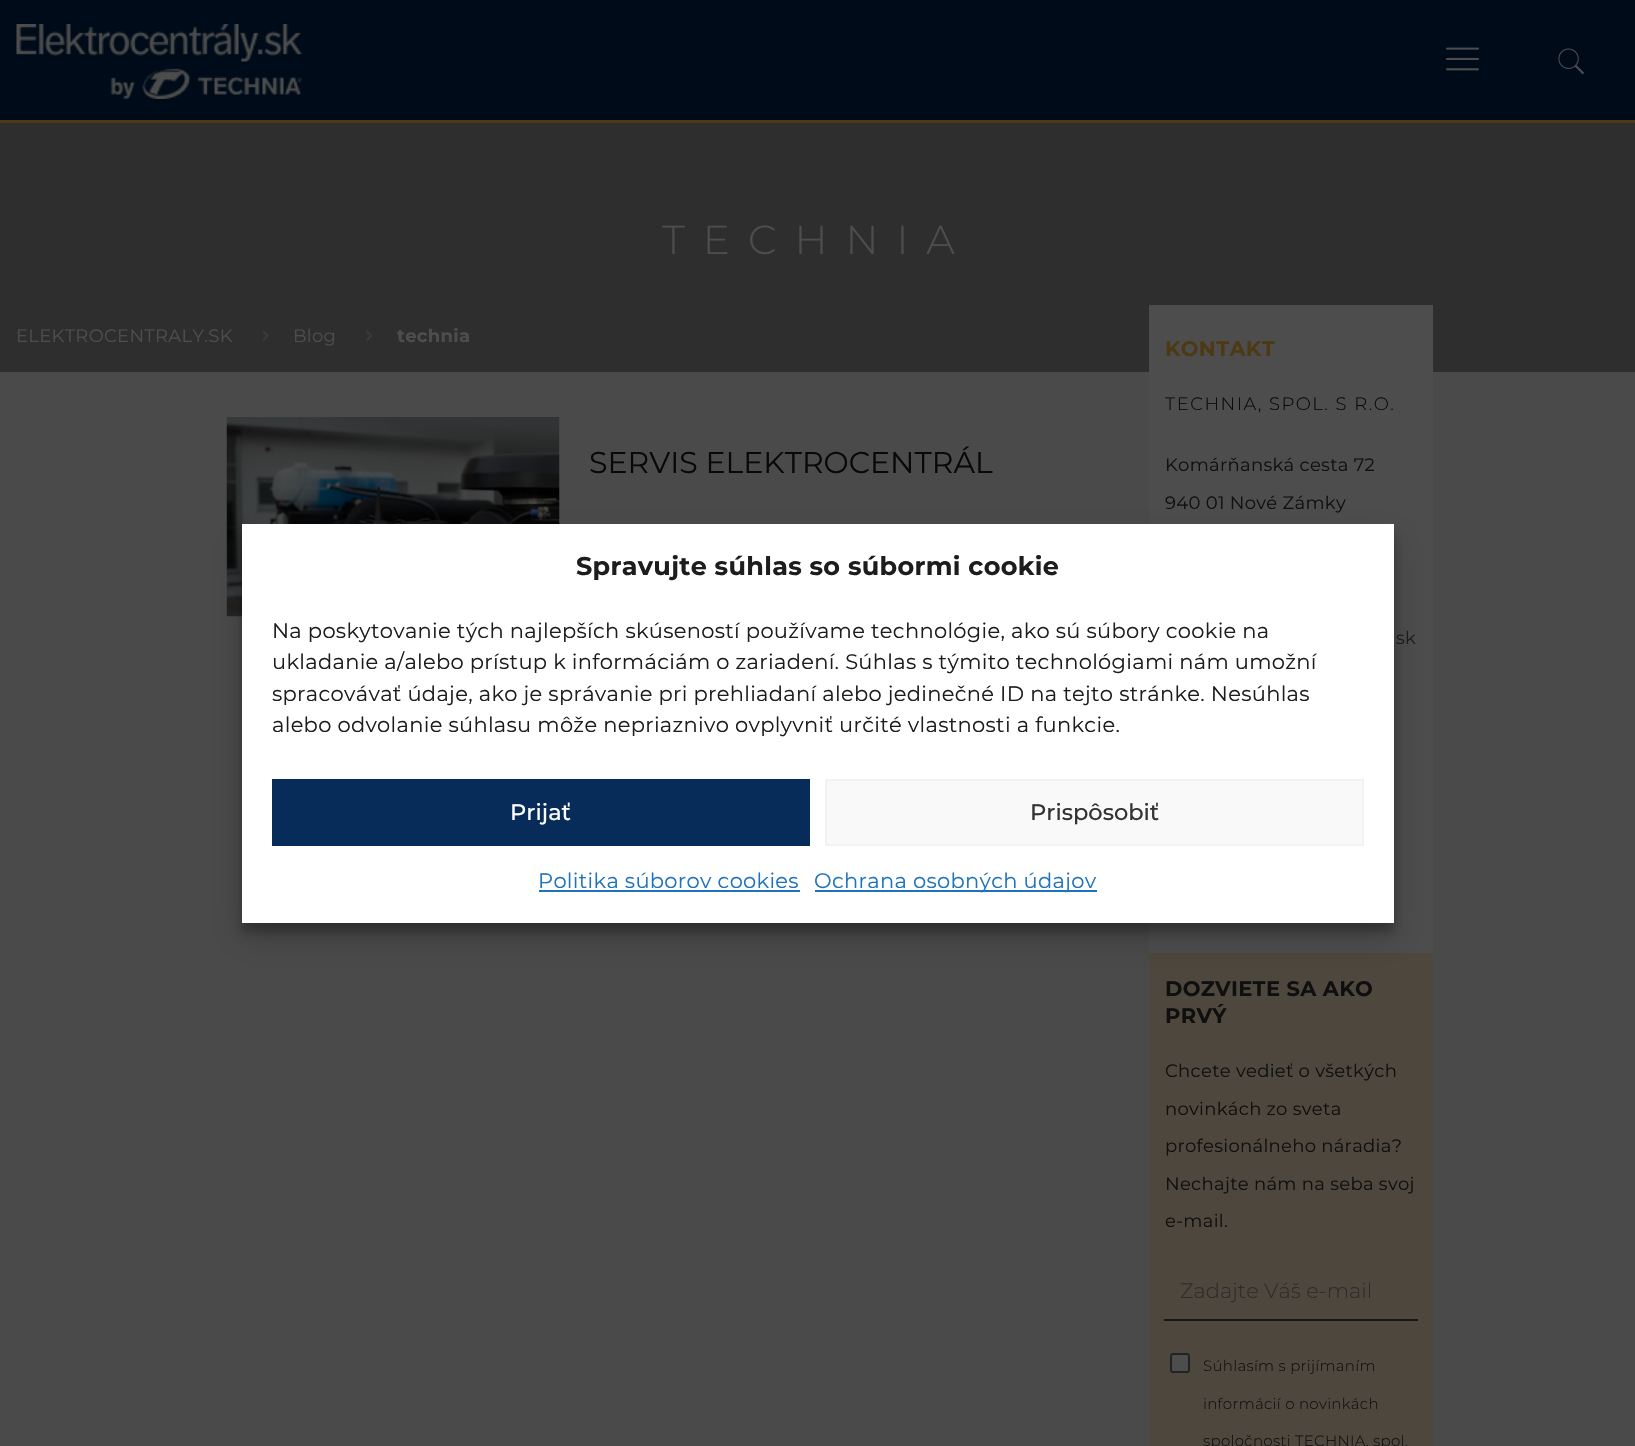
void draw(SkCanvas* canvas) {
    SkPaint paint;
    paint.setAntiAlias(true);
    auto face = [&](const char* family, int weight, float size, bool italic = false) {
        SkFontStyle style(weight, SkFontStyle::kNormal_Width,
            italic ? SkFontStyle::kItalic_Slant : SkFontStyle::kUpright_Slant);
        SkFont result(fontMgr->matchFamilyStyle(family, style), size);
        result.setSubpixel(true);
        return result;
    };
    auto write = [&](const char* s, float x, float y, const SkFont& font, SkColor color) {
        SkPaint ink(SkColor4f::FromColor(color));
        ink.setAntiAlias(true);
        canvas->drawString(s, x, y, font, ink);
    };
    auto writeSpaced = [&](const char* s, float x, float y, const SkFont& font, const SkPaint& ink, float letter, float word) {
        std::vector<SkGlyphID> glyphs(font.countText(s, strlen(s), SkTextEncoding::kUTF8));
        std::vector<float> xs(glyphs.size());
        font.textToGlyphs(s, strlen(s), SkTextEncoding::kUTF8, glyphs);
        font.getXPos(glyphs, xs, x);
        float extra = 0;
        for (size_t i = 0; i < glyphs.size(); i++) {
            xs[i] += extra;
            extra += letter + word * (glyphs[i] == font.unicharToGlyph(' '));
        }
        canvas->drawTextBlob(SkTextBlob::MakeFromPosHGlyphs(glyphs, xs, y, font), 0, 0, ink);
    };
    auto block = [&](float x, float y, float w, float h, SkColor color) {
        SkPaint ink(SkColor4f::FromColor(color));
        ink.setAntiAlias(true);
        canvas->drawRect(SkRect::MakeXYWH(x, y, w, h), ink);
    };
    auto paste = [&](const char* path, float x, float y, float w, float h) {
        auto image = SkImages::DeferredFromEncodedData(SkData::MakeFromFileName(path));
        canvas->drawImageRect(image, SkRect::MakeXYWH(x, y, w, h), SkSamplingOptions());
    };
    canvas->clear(SkColorSetRGB(74, 74, 74));
    block(0, 0, 1635, 120, SkColorSetRGB(0, 11, 25));
    block(0, 120, 1635, 3, SkColorSetRGB(77, 57, 19));
    paste("pic1.png", 16, 24, 286, 75);
    paste("pic2.png", 1446, 47, 33, 24);
    paste("pic3.png", 1558, 48, 27, 27);
    block(0, 123, 1635, 249, SkColorSetRGB(46, 46, 46));
    auto kFont1 = face("Montserrat", 300, 40.5f);
    paint.setColor(SkColorSetRGB(77, 77, 77));
    writeSpaced("TECHNIA", 662, 254, kFont1, paint, 18, 0);
    auto kFont2 = face("Montserrat", 400, 18);
    writeSpaced("ELEKTROCENTRALY.SK", 16, 342, kFont2, paint, 0.3f, 0);
    paste("pic4.png", 262, 330, 7, 11);
    writeSpaced("Blog", 293, 342, kFont2, paint, 0.3f, 0);
    paste("pic5.png", 366, 330, 6, 11);
    auto kFont3 = face("Montserrat", 700, 18);
    writeSpaced("technia", 397, 342, kFont3, paint, 0.3f, 0);
    paste("pic6.png", 226, 417, 334, 200);
    auto kFont4 = face("Montserrat", 400, 30);
    write("SERVIS ELEKTROCENTRÁL", 589, 473, kFont4, SkColorSetRGB(8, 8, 8));
    block(1149, 305, 284, 648, SkColorSetRGB(77, 77, 77));
    auto kFont5 = face("Montserrat", 700, 21);
    paint.setColor(SkColorSetRGB(77, 57, 19));
    writeSpaced("KONTAKT", 1165, 356, kFont5, paint, 0.3f, 0);
    auto kFont6 = face("Montserrat", 300, 18);
    paint.setColor(SkColorSetRGB(8, 8, 8));
    writeSpaced("TECHNIA, SPOL. S R.O.", 1165, 410, kFont6, paint, 1.5f, 0);
    paint.setColor(SkColorSetRGB(15, 15, 15));
    writeSpaced("Komárňanská cesta 72", 1165, 471, kFont2, paint, 0.3f, 0);
    writeSpaced("940 01 Nové Zámky", 1165, 509, kFont2, paint, 0.3f, 0);
    paint.setColor(SkColorSetRGB(29, 29, 29));
    writeSpaced("sk", 1396, 644, kFont2, paint, 0.3f, 0);
    block(1149, 953, 284, 493, SkColorSetRGB(77, 71, 61));
    paint.setColor(SkColorSetRGB(15, 15, 15));
    writeSpaced("DOZVIETE SA AKO", 1165, 996, kFont5, paint, 0.3f, 0);
    writeSpaced("PRVÝ", 1165, 1023, kFont5, paint, 0.3f, 0);
    writeSpaced("Chcete vedieť o všetkých", 1165, 1077, kFont2, paint, 0.3f, 0);
    writeSpaced("novinkách zo sveta", 1165, 1115, kFont2, paint, 0.3f, 0);
    writeSpaced("profesionálneho náradia?", 1165, 1152, kFont2, paint, 0.3f, 0);
    writeSpaced("Nechajte nám na seba svoj", 1165, 1190, kFont2, paint, 0.3f, 0);
    writeSpaced("e-mail.", 1165, 1227, kFont2, paint, 0.3f, 0);
    block(1164, 1319, 254, 2, SkColorSetRGB(23, 23, 23));
    auto kFont7 = face("Montserrat", 300, 21);
    write("Zadajte Váš e-mail", 1180, 1298, kFont7, SkColorSetRGB(44, 44, 44));
    paint.setColor(SkColorSetRGB(77, 77, 77));
    canvas->drawRoundRect(SkRect::MakeXYWH(1171, 1354, 18, 18), 2, 2, paint);
    paint.setStyle(SkPaint::kStroke_Style);
    paint.setStrokeWidth(2);
    paint.setColor(SkColorSetRGB(35, 35, 35));
    canvas->drawRoundRect(SkRect::MakeXYWH(1171, 1354, 18, 18), 2, 2, paint);
    auto kFont8 = face("Montserrat", 300, 15);
    paint.setStyle(SkPaint::kFill_Style);
    paint.setColor(SkColorSetRGB(15, 15, 15));
    writeSpaced("Súhlasím s prijímaním", 1203, 1371, kFont8, paint, 0.3f, 0);
    writeSpaced("informácií o novinkách", 1203, 1409, kFont8, paint, 0.3f, 0);
    writeSpaced("spoločnosti TECHNIA, spol.", 1203, 1446, kFont8, paint, 0.3f, 0);
    paint.setColor(SkColorSetARGB(59, 0, 0, 0));
    paint.setMaskFilter(SkMaskFilter::MakeBlur(kNormal_SkBlurStyle, 4.5f));
    canvas->drawRect(SkRect::MakeXYWH(242, 533, 1152, 399), paint);
    paint.setMaskFilter(nullptr);
    paint.setColor(SkColorSetARGB(48, 0, 0, 0));
    paint.setMaskFilter(SkMaskFilter::MakeBlur(kNormal_SkBlurStyle, 15));
    canvas->drawRect(SkRect::MakeXYWH(242, 539, 1152, 399), paint);
    paint.setMaskFilter(nullptr);
    block(242, 524, 1152, 399, SK_ColorWHITE);
    auto kFont9 = face("Montserrat", 700, 25.5f);
    paint.setColor(SkColorSetRGB(29, 29, 29));
    writeSpaced("Spravujte súhlas so súbormi cookie", 576, 575, kFont9, paint, 0.3f, 0);
    auto kFont10 = face("Montserrat", 400, 21);
    writeSpaced("Na poskytovanie tých najlepších skúseností používame technológie, ako sú súbory cookie na", 272, 638, kFont10, paint, 0.3f, 0);
    writeSpaced("ukladanie a/alebo prístup k informáciám o zariadení. Súhlas s týmito technológiami nám umožní", 272, 669, kFont10, paint, 0.3f, 0);
    writeSpaced("spracovávať údaje, ako je správanie pri prehliadaní alebo jedinečné ID na tejto stránke. Nesúhlas", 272, 701, kFont10, paint, 0.3f, 0);
    writeSpaced("alebo odvolanie súhlasu môže nepriaznivo ovplyvniť určité vlastnosti a funkcie.", 272, 732, kFont10, paint, 0.3f, 0);
    block(272, 779, 538, 67, SkColorSetRGB(8, 44, 89));
    auto kFont11 = face("Montserrat", 500, 22.5f);
    write("Prijať", 510, 820, kFont11, SK_ColorWHITE);
    paint.setColor(SkColorSetRGB(249, 249, 249));
    canvas->drawRect(SkRect::MakeXYWH(826, 780, 537, 65), paint);
    paint.setStyle(SkPaint::kStroke_Style);
    paint.setColor(SkColorSetRGB(242, 242, 242));
    canvas->drawRect(SkRect::MakeXYWH(826, 780, 537, 65), paint);
    write("Prispôsobiť", 1030, 820, kFont11, SkColorSetRGB(51, 51, 51));
    paint.setStyle(SkPaint::kFill_Style);
    paint.setColor(SkColorSetRGB(30, 115, 190));
    writeSpaced("Politika súborov cookies", 538, 888, kFont10, paint, 0.3f, 0);
    block(539, 890, 261, 2, SkColorSetRGB(30, 115, 190));
    block(815, 890, 282, 2, SkColorSetRGB(30, 115, 190));
    writeSpaced("Ochrana osobných údajov", 814, 888, kFont10, paint, 0.3f, 0);
}
